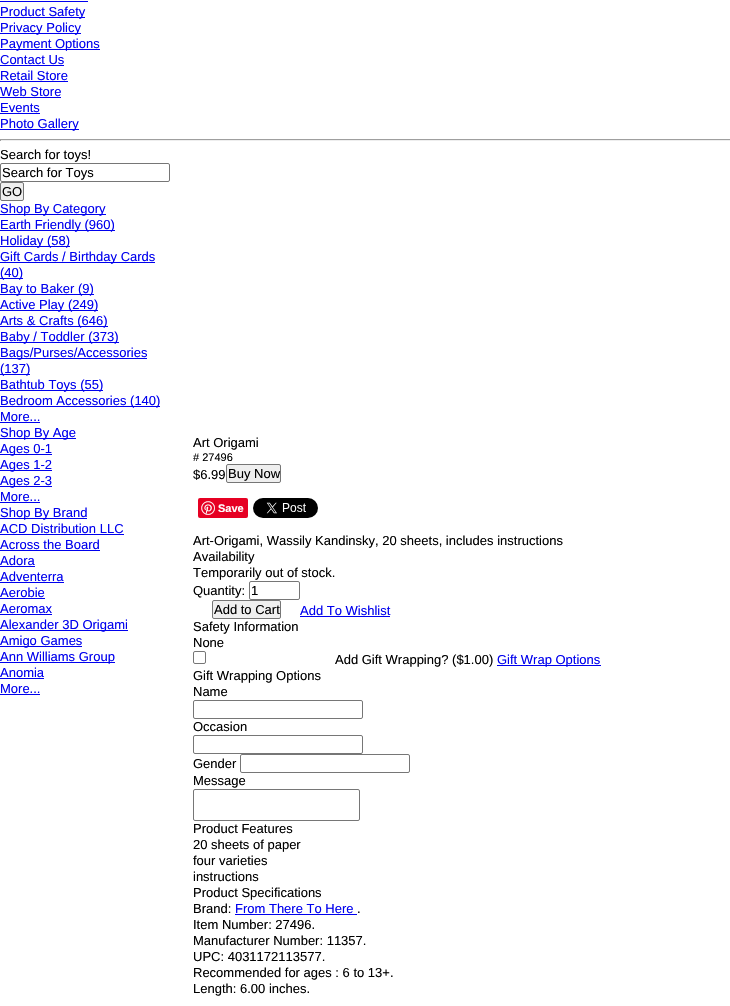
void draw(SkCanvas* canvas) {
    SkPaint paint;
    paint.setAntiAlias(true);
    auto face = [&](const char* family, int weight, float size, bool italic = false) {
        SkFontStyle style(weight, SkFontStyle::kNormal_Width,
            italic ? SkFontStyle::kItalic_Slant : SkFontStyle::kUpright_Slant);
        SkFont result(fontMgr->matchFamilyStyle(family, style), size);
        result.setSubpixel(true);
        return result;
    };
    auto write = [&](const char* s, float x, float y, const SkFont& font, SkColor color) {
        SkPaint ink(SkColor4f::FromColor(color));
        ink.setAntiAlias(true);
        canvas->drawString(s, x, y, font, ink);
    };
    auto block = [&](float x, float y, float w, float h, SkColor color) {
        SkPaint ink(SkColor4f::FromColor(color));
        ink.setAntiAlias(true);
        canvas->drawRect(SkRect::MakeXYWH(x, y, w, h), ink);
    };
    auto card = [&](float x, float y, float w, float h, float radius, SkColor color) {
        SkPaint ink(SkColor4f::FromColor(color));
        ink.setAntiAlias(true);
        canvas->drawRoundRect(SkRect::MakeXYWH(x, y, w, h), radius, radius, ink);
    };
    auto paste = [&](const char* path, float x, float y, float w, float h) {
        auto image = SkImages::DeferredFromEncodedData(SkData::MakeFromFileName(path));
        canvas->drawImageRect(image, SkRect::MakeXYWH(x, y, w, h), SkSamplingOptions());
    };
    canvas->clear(SK_ColorWHITE);
    block(0, 1, 88, 1, SkColorSetRGB(0, 0, 238));
    block(0, 17, 85, 1, SkColorSetRGB(0, 0, 238));
    auto kFont1 = face("Liberation Sans", 400, 13);
    write("Product Safety", 0, 16, kFont1, SkColorSetRGB(0, 0, 238));
    block(0, 33, 81, 1, SkColorSetRGB(0, 0, 238));
    write("Privacy Policy", 0, 32, kFont1, SkColorSetRGB(0, 0, 238));
    block(0, 49, 100, 1, SkColorSetRGB(0, 0, 238));
    write("Payment Options", 0, 48, kFont1, SkColorSetRGB(0, 0, 238));
    write("Contact Us", 0, 64, kFont1, SkColorSetRGB(0, 0, 238));
    block(0, 65, 64, 1, SkColorSetRGB(0, 0, 238));
    write("Retail Store", 0, 80, kFont1, SkColorSetRGB(0, 0, 238));
    block(0, 81, 68, 1, SkColorSetRGB(0, 0, 238));
    write("Web Store", 0, 96, kFont1, SkColorSetRGB(0, 0, 238));
    block(0, 97, 61, 1, SkColorSetRGB(0, 0, 238));
    write("Events", 0, 112, kFont1, SkColorSetRGB(0, 0, 238));
    block(0, 113, 40, 1, SkColorSetRGB(0, 0, 238));
    block(0, 129, 79, 1, SkColorSetRGB(0, 0, 238));
    write("Photo Gallery", 0, 128, kFont1, SkColorSetRGB(0, 0, 238));
    block(0, 139, 730, 1, SkColorSetRGB(159, 159, 159));
    block(0, 140, 730, 1, SkColorSetRGB(238, 238, 238));
    block(0, 139, 1, 2, SkColorSetRGB(159, 159, 159));
    write("Search for toys!", 0, 159, kFont1, SK_ColorBLACK);
    paint.setStyle(SkPaint::kStroke_Style);
    paint.setStrokeWidth(1);
    paint.setColor(SkColorSetRGB(118, 118, 118));
    canvas->drawRoundRect(SkRect::MakeXYWH(0.5f, 163.5f, 169, 18), 1.5f, 1.5f, paint);
    write("Search for Toys", 2, 177, kFont1, SK_ColorBLACK);
    paint.setStyle(SkPaint::kFill_Style);
    paint.setColor(SkColorSetRGB(239, 239, 239));
    canvas->drawRoundRect(SkRect::MakeXYWH(0.5f, 182.5f, 23, 18), 1.5f, 1.5f, paint);
    paint.setStyle(SkPaint::kStroke_Style);
    paint.setColor(SkColorSetRGB(118, 118, 118));
    canvas->drawRoundRect(SkRect::MakeXYWH(0.5f, 182.5f, 23, 18), 1.5f, 1.5f, paint);
    write("GO", 2, 196, kFont1, SK_ColorBLACK);
    block(0, 214, 106, 1, SkColorSetRGB(0, 0, 238));
    write("Shop By Category", 0, 213, kFont1, SkColorSetRGB(0, 0, 238));
    block(0, 230, 115, 1, SkColorSetRGB(0, 0, 238));
    write("Earth Friendly (960)", 0, 229, kFont1, SkColorSetRGB(0, 0, 238));
    block(0, 246, 70, 1, SkColorSetRGB(0, 0, 238));
    write("Holiday (58)", 0, 245, kFont1, SkColorSetRGB(0, 0, 238));
    block(0, 262, 155, 1, SkColorSetRGB(0, 0, 238));
    write("Gift Cards / Birthday Cards", 0, 261, kFont1, SkColorSetRGB(0, 0, 238));
    block(0, 278, 23, 1, SkColorSetRGB(0, 0, 238));
    write("(40)", 0, 277, kFont1, SkColorSetRGB(0, 0, 238));
    block(0, 294, 94, 1, SkColorSetRGB(0, 0, 238));
    write("Bay to Baker (9)", 0, 293, kFont1, SkColorSetRGB(0, 0, 238));
    block(0, 310, 98, 1, SkColorSetRGB(0, 0, 238));
    write("Active Play (249)", 0, 309, kFont1, SkColorSetRGB(0, 0, 238));
    block(0, 326, 108, 1, SkColorSetRGB(0, 0, 238));
    write("Arts & Crafts (646)", 0, 325, kFont1, SkColorSetRGB(0, 0, 238));
    block(0, 342, 119, 1, SkColorSetRGB(0, 0, 238));
    write("Baby / Toddler (373)", 0, 341, kFont1, SkColorSetRGB(0, 0, 238));
    block(0, 358, 147, 1, SkColorSetRGB(0, 0, 238));
    write("Bags/Purses/Accessories", 0, 357, kFont1, SkColorSetRGB(0, 0, 238));
    block(0, 374, 30, 1, SkColorSetRGB(0, 0, 238));
    write("(137)", 0, 373, kFont1, SkColorSetRGB(0, 0, 238));
    block(0, 390, 103, 1, SkColorSetRGB(0, 0, 238));
    write("Bathtub Toys (55)", 0, 389, kFont1, SkColorSetRGB(0, 0, 238));
    block(0, 406, 160, 1, SkColorSetRGB(0, 0, 238));
    write("Bedroom Accessories (140)", 0, 405, kFont1, SkColorSetRGB(0, 0, 238));
    write("More...", 0, 421, kFont1, SkColorSetRGB(0, 0, 238));
    block(0, 422, 40, 1, SkColorSetRGB(0, 0, 238));
    block(0, 438, 76, 1, SkColorSetRGB(0, 0, 238));
    write("Shop By Age", 0, 437, kFont1, SkColorSetRGB(0, 0, 238));
    block(0, 454, 52, 1, SkColorSetRGB(0, 0, 238));
    write("Ages 0-1", 0, 453, kFont1, SkColorSetRGB(0, 0, 238));
    block(0, 470, 52, 1, SkColorSetRGB(0, 0, 238));
    write("Ages 1-2", 0, 469, kFont1, SkColorSetRGB(0, 0, 238));
    block(0, 486, 52, 1, SkColorSetRGB(0, 0, 238));
    write("Ages 2-3", 0, 485, kFont1, SkColorSetRGB(0, 0, 238));
    write("More...", 0, 501, kFont1, SkColorSetRGB(0, 0, 238));
    block(0, 502, 40, 1, SkColorSetRGB(0, 0, 238));
    block(0, 518, 87, 1, SkColorSetRGB(0, 0, 238));
    write("Shop By Brand", 0, 517, kFont1, SkColorSetRGB(0, 0, 238));
    write("ACD Distribution LLC", 0, 533, kFont1, SkColorSetRGB(0, 0, 238));
    block(0, 534, 124, 1, SkColorSetRGB(0, 0, 238));
    write("Across the Board", 0, 549, kFont1, SkColorSetRGB(0, 0, 238));
    block(0, 550, 100, 1, SkColorSetRGB(0, 0, 238));
    write("Adora", 0, 565, kFont1, SkColorSetRGB(0, 0, 238));
    block(0, 566, 35, 1, SkColorSetRGB(0, 0, 238));
    write("Adventerra", 0, 581, kFont1, SkColorSetRGB(0, 0, 238));
    block(0, 582, 64, 1, SkColorSetRGB(0, 0, 238));
    write("Aerobie", 0, 597, kFont1, SkColorSetRGB(0, 0, 238));
    block(0, 598, 45, 1, SkColorSetRGB(0, 0, 238));
    write("Aeromax", 0, 613, kFont1, SkColorSetRGB(0, 0, 238));
    block(0, 614, 52, 1, SkColorSetRGB(0, 0, 238));
    block(0, 630, 128, 1, SkColorSetRGB(0, 0, 238));
    write("Alexander 3D Origami", 0, 629, kFont1, SkColorSetRGB(0, 0, 238));
    block(0, 646, 82, 1, SkColorSetRGB(0, 0, 238));
    write("Amigo Games", 0, 645, kFont1, SkColorSetRGB(0, 0, 238));
    block(0, 662, 115, 1, SkColorSetRGB(0, 0, 238));
    write("Ann Williams Group", 0, 661, kFont1, SkColorSetRGB(0, 0, 238));
    write("Anomia", 0, 677, kFont1, SkColorSetRGB(0, 0, 238));
    block(0, 678, 44, 1, SkColorSetRGB(0, 0, 238));
    write("More...", 0, 693, kFont1, SkColorSetRGB(0, 0, 238));
    block(0, 694, 40, 1, SkColorSetRGB(0, 0, 238));
    write("Art Origami", 193, 447, kFont1, SK_ColorBLACK);
    auto kFont2 = face("Liberation Sans", 400, 11);
    write("# 27496", 193, 461, kFont2, SK_ColorBLACK);
    write("$6.99", 193, 479, kFont1, SK_ColorBLACK);
    paint.setStyle(SkPaint::kFill_Style);
    paint.setColor(SkColorSetRGB(239, 239, 239));
    canvas->drawRoundRect(SkRect::MakeXYWH(226.5f, 464.5f, 54, 18), 1.5f, 1.5f, paint);
    paint.setStyle(SkPaint::kStroke_Style);
    paint.setColor(SkColorSetRGB(118, 118, 118));
    canvas->drawRoundRect(SkRect::MakeXYWH(226.5f, 464.5f, 54, 18), 1.5f, 1.5f, paint);
    write("Buy Now", 228, 478, kFont1, SK_ColorBLACK);
    card(198, 498, 50, 20, 2, SkColorSetRGB(230, 0, 35));
    paste("pic1.png", 201, 501, 14, 14);
    auto kFont3 = face("Liberation Sans", 700, 11);
    write("Save", 218, 512, kFont3, SK_ColorWHITE);
    paste("pic2.png", 253, 498, 65, 20);
    write("Art-Origami, Wassily Kandinsky, 20 sheets, includes instructions", 193, 545, kFont1, SK_ColorBLACK);
    write("Availability", 193, 561, kFont1, SK_ColorBLACK);
    write("Temporarily out of stock.", 193, 577, kFont1, SK_ColorBLACK);
    write("Quantity:", 193, 595, kFont1, SK_ColorBLACK);
    canvas->drawRoundRect(SkRect::MakeXYWH(249.5f, 581.5f, 50, 18), 1.5f, 1.5f, paint);
    write("1", 251, 595, kFont1, SK_ColorBLACK);
    paint.setStyle(SkPaint::kFill_Style);
    paint.setColor(SkColorSetRGB(239, 239, 239));
    canvas->drawRoundRect(SkRect::MakeXYWH(212.5f, 600.5f, 68, 18), 1.5f, 1.5f, paint);
    paint.setStyle(SkPaint::kStroke_Style);
    paint.setColor(SkColorSetRGB(118, 118, 118));
    canvas->drawRoundRect(SkRect::MakeXYWH(212.5f, 600.5f, 68, 18), 1.5f, 1.5f, paint);
    write("Add to Cart", 214, 614, kFont1, SK_ColorBLACK);
    write("Add To Wishlist", 300, 615, kFont1, SkColorSetRGB(0, 0, 238));
    block(300, 616, 90, 1, SkColorSetRGB(0, 0, 238));
    write("Safety Information", 193, 631, kFont1, SK_ColorBLACK);
    write("None", 193, 647, kFont1, SK_ColorBLACK);
    canvas->drawRoundRect(SkRect::MakeXYWH(193.5f, 651.5f, 12, 12), 1.5f, 1.5f, paint);
    write("Add Gift Wrapping? ($1.00)", 335, 664, kFont1, SK_ColorBLACK);
    block(497, 665, 104, 1, SkColorSetRGB(0, 0, 238));
    write("Gift Wrap Options", 497, 664, kFont1, SkColorSetRGB(0, 0, 238));
    write("Gift Wrapping Options", 193, 680, kFont1, SK_ColorBLACK);
    write("Name", 193, 696, kFont1, SK_ColorBLACK);
    canvas->drawRoundRect(SkRect::MakeXYWH(193.5f, 700.5f, 169, 18), 1.5f, 1.5f, paint);
    write("Occasion", 193, 731, kFont1, SK_ColorBLACK);
    canvas->drawRoundRect(SkRect::MakeXYWH(193.5f, 735.5f, 169, 18), 1.5f, 1.5f, paint);
    write("Gender", 193, 768, kFont1, SK_ColorBLACK);
    canvas->drawRoundRect(SkRect::MakeXYWH(240.5f, 754.5f, 169, 18), 1.5f, 1.5f, paint);
    write("Message", 193, 785, kFont1, SK_ColorBLACK);
    canvas->drawRoundRect(SkRect::MakeXYWH(193.5f, 789.5f, 166, 31), 1.5f, 1.5f, paint);
    write("Product Features", 193, 833, kFont1, SK_ColorBLACK);
    write("20 sheets of paper", 193, 849, kFont1, SK_ColorBLACK);
    write("four varieties", 193, 865, kFont1, SK_ColorBLACK);
    write("instructions", 193, 881, kFont1, SK_ColorBLACK);
    write("Product Specifications", 193, 897, kFont1, SK_ColorBLACK);
    write("Brand:", 193, 913, kFont1, SK_ColorBLACK);
    write("From There To Here", 235, 913, kFont1, SkColorSetRGB(0, 0, 238));
    write(".", 357, 913, kFont1, SK_ColorBLACK);
    block(235, 914, 122, 1, SkColorSetRGB(0, 0, 238));
    write("Item Number: 27496.", 193, 929, kFont1, SK_ColorBLACK);
    write("Manufacturer Number: 11357.", 193, 945, kFont1, SK_ColorBLACK);
    write("UPC: 4031172113577.", 193, 961, kFont1, SK_ColorBLACK);
    write("Recommended for ages : 6 to 13+.", 193, 977, kFont1, SK_ColorBLACK);
    write("Length: 6.00 inches.", 193, 993, kFont1, SK_ColorBLACK);
}
